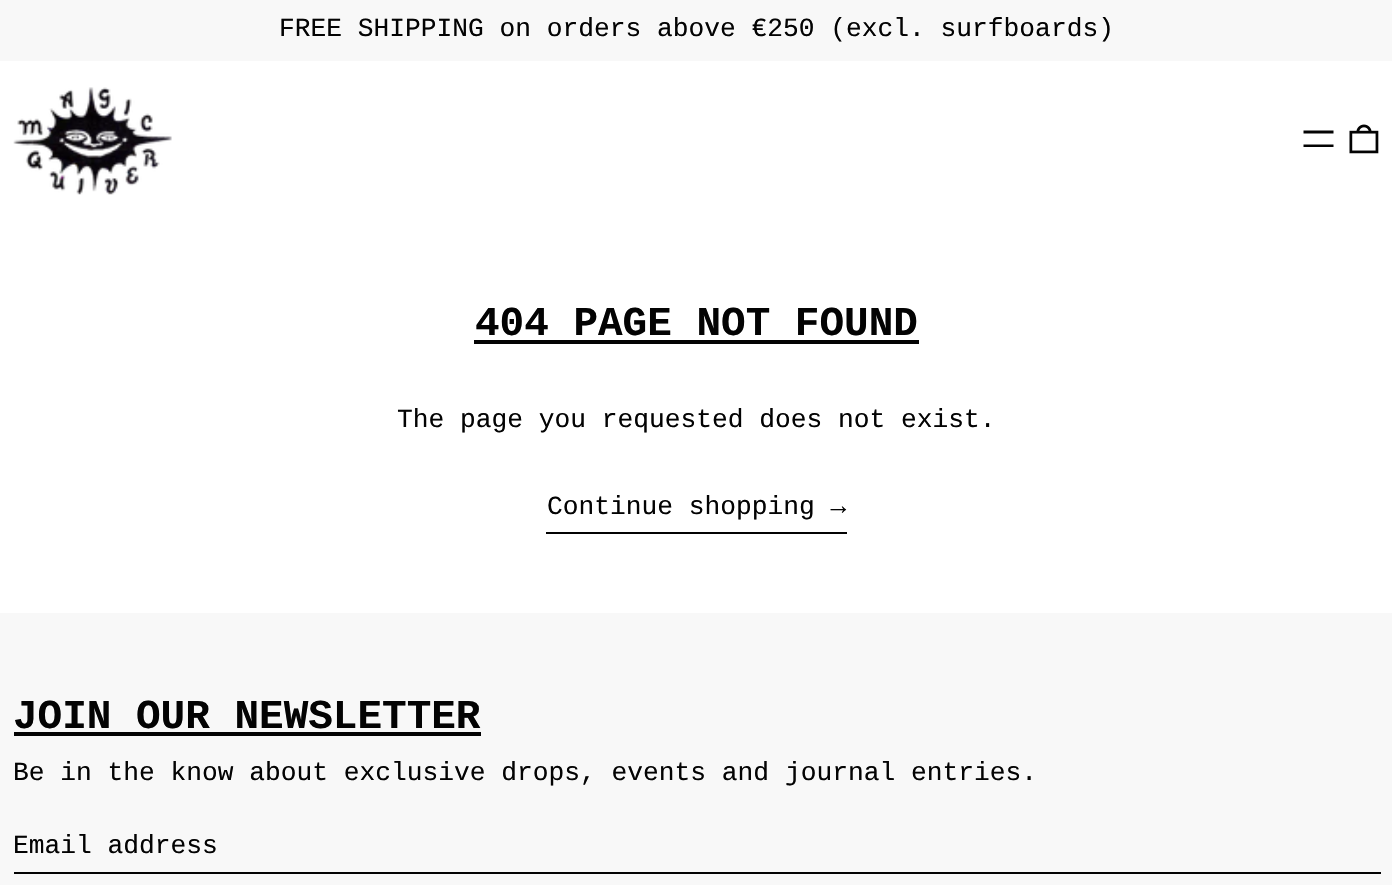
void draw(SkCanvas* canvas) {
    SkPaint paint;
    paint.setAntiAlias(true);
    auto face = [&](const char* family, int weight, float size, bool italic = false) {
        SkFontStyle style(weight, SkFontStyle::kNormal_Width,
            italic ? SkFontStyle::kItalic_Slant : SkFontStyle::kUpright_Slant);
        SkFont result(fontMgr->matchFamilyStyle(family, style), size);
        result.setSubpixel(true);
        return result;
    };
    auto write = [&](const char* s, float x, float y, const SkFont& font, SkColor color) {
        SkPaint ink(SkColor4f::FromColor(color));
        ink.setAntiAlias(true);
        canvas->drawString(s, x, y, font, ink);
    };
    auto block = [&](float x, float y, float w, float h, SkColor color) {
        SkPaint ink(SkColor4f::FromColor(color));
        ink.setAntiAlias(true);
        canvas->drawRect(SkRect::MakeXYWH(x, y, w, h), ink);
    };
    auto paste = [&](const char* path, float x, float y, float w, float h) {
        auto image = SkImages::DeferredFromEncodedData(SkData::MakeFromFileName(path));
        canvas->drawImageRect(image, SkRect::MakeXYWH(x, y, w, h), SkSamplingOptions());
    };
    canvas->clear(SK_ColorWHITE);
    block(0, 0, 1392, 61, SkColorSetRGB(248, 248, 248));
    auto kFont1 = face("Liberation Mono", 400, 26.25f);
    write("FREE SHIPPING on orders above €250 (excl. surfboards)", 279, 36, kFont1, SkColorSetRGB(3, 3, 3));
    paste("pic1.png", 13, 87, 159, 108);
    paint.setColor(SkColorSetRGB(3, 3, 3));
    canvas->drawPath(SkPathBuilder(SkPathFillType::kEvenOdd).moveTo(1333.5f, 144.5f).lineTo(1333.5f, 147).lineTo(1303.5f, 147).lineTo(1303.5f, 144.5f).close().moveTo(1333.5f, 130.5f).lineTo(1333.5f, 133.5f).lineTo(1303.5f, 133.5f).lineTo(1303.5f, 130.5f).close().detach(), paint);
    paste("pic2.png", 1349, 124, 30, 30);
    auto kFont2 = face("Liberation Mono", 700, 41);
    write("404 PAGE NOT FOUND", 475, 335, kFont2, SkColorSetRGB(3, 3, 3));
    block(474, 340, 445, 4, SkColorSetRGB(3, 3, 3));
    write("The page you requested does not exist.", 397, 427, kFont1, SkColorSetRGB(3, 3, 3));
    block(546, 532, 301, 2, SkColorSetRGB(3, 3, 3));
    write("Continue shopping →", 547, 514, kFont1, SkColorSetRGB(3, 3, 3));
    block(0, 613, 1392, 272, SkColorSetRGB(248, 248, 248));
    write("JOIN OUR NEWSLETTER", 13, 728, kFont2, SkColorSetRGB(3, 3, 3));
    block(14, 732, 467, 4, SkColorSetRGB(3, 3, 3));
    write("Be in the know about exclusive drops, events and journal entries.", 13, 780, kFont1, SkColorSetRGB(3, 3, 3));
    block(14, 872, 1367, 2, SkColorSetRGB(3, 3, 3));
    write("Email address", 13, 853, kFont1, SkColorSetRGB(3, 3, 3));
}
